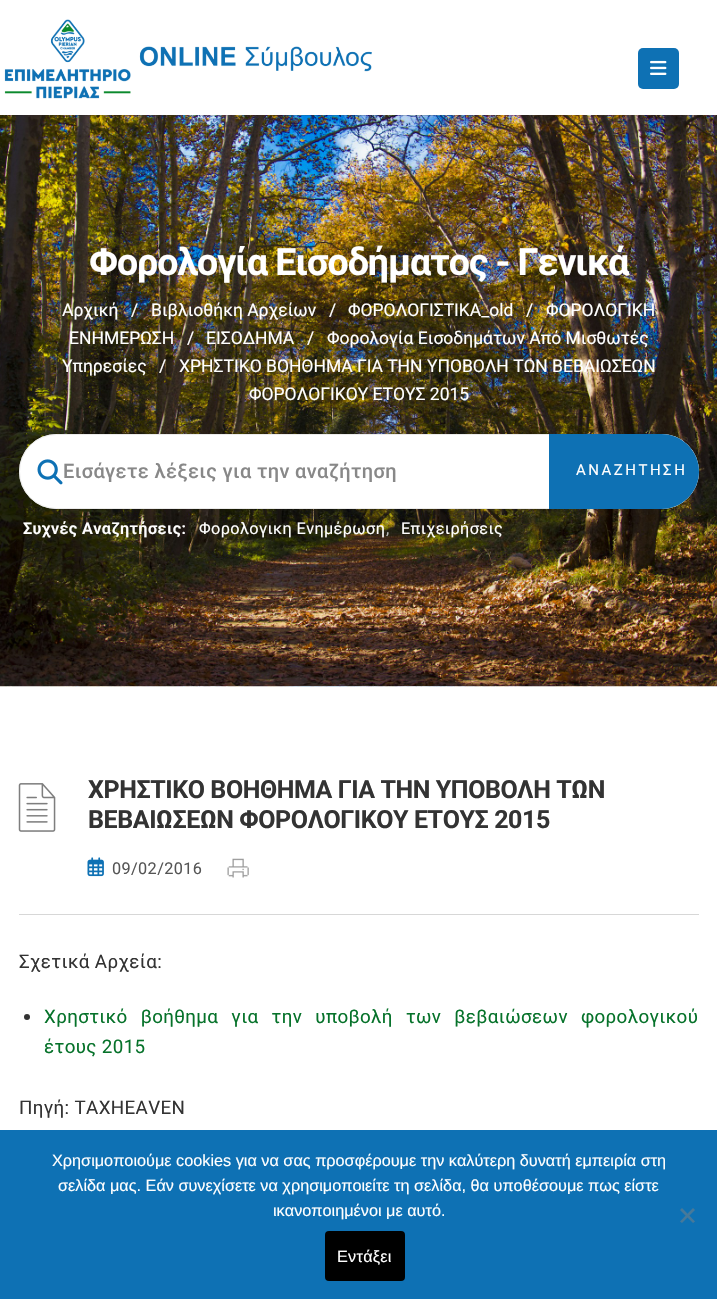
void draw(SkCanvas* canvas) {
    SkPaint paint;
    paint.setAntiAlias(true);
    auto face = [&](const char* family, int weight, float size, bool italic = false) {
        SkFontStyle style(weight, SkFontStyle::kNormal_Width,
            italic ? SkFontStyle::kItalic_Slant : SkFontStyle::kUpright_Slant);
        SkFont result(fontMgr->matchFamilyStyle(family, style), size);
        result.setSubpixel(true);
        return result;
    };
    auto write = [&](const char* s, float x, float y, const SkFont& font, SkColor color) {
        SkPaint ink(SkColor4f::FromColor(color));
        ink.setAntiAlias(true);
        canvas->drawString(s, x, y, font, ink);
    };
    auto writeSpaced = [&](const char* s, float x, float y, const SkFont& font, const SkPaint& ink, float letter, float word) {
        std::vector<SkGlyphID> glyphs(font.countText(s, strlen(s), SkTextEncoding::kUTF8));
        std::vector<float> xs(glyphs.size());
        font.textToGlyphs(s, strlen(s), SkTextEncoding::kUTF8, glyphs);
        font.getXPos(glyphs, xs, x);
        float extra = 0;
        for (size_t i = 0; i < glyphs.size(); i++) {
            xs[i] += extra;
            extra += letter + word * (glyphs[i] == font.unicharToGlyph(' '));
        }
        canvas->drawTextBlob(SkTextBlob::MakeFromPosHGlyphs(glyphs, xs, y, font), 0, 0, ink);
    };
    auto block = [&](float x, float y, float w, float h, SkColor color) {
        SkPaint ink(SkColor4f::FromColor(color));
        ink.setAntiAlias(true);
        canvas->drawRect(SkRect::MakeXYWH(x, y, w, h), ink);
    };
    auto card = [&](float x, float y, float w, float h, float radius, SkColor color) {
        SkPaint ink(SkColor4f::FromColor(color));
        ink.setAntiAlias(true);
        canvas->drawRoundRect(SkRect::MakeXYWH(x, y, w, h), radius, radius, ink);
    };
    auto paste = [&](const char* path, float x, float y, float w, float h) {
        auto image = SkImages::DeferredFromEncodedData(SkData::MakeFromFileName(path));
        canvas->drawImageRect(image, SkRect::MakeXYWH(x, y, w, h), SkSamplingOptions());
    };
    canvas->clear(SK_ColorWHITE);
    paste("pic1.png", 4, 19, 368, 80);
    card(638, 48, 41, 41, 5, SkColorSetRGB(14, 113, 180));
    paste("pic2.png", 650, 60, 17, 15);
    paste("pic3.png", 0, 115, 717, 572);
    auto kFont1 = face("Roboto", 700, 37.5f);
    paint.setColor(SK_ColorWHITE);
    writeSpaced("Φορολογία Εισοδήματος - Γενικά", 89, 275, kFont1, paint, -1, 0);
    auto kFont2 = face("Roboto", 400, 17.5f);
    write("Αρχική", 62, 316, kFont2, SK_ColorWHITE);
    write("/", 131, 316, kFont2, SK_ColorWHITE);
    write("Βιβλιοθήκη Αρχείων", 151, 316, kFont2, SK_ColorWHITE);
    write("/", 329, 316, kFont2, SK_ColorWHITE);
    write("ΦΟΡΟΛΟΓΙΣΤΙΚΑ_old", 348, 316, kFont2, SK_ColorWHITE);
    write("/", 526, 316, kFont2, SK_ColorWHITE);
    write("ΦΟΡΟΛΟΓΙΚΗ", 546, 316, kFont2, SK_ColorWHITE);
    write("ΕΝΗΜΕΡΩΣΗ", 69, 344, kFont2, SK_ColorWHITE);
    write("/", 187, 344, kFont2, SK_ColorWHITE);
    write("ΕΙΣΟΔΗΜΑ", 206, 344, kFont2, SK_ColorWHITE);
    write("/", 307, 344, kFont2, SK_ColorWHITE);
    write("Φορολογία Εισοδημάτων Από Μισθωτές", 327, 344, kFont2, SK_ColorWHITE);
    write("Υπηρεσίες", 62, 372, kFont2, SK_ColorWHITE);
    write("/", 159, 372, kFont2, SK_ColorWHITE);
    write("ΧΡΗΣΤΙΚΟ ΒΟΗΘΗΜΑ ΓΙΑ ΤΗΝ ΥΠΟΒΟΛΗ ΤΩΝ ΒΕΒΑΙΩΣΕΩΝ", 179, 372, kFont2, SK_ColorWHITE);
    write("ΦΟΡΟΛΟΓΙΚΟΥ ΕΤΟΥΣ 2015", 249, 400, kFont2, SK_ColorWHITE);
    card(19, 434, 680, 75, 37.5f, SK_ColorWHITE);
    paint.setStyle(SkPaint::kStroke_Style);
    paint.setStrokeWidth(1);
    paint.setColor(SkColorSetARGB(230, 233, 233, 233));
    canvas->drawRoundRect(SkRect::MakeXYWH(19.5f, 434.5f, 679, 74), 37, 37, paint);
    paste("pic4.png", 37, 459, 26, 26);
    auto kFont3 = face("Roboto", 500, 20);
    paint.setStyle(SkPaint::kFill_Style);
    paint.setColor(SkColorSetRGB(136, 136, 136));
    writeSpaced("Εισάγετε λέξεις για την αναζήτηση", 63, 478, kFont3, paint, 0.38f, 0);
    paint.setColor(SkColorSetRGB(14, 113, 180));
    canvas->drawPath(SkPathBuilder().moveTo(549, 434).lineTo(661.5f, 434).cubicTo(682, 434, 699, 451, 699, 471.5f).cubicTo(699, 492, 682, 509, 661.5f, 509).lineTo(549, 509).close().detach(), paint);
    auto kFont4 = face("Roboto", 400, 15);
    paint.setColor(SK_ColorWHITE);
    writeSpaced("AΝΑΖΗΤΗΣΗ", 576, 475, kFont4, paint, 2.5f, 0);
    auto kFont5 = face("Roboto", 600, 16.25f);
    writeSpaced("Συχνές Αναζητήσεις:", 23, 534, kFont5, paint, 0.38f, 0);
    auto kFont6 = face("Roboto", 400, 16.25f);
    writeSpaced("Φορολογικη Ενημέρωση", 199, 534, kFont6, paint, 0.38f, 0);
    paint.setColor(SkColorSetRGB(181, 181, 181));
    writeSpaced(",", 386, 534, kFont6, paint, 0.38f, 0);
    paint.setColor(SK_ColorWHITE);
    writeSpaced("Επιχειρήσεις", 401, 534, kFont6, paint, 0.38f, 0);
    block(19, 914, 680, 1, SkColorSetRGB(215, 215, 215));
    paste("pic5.png", 18, 783, 38, 49);
    auto kFont7 = face("Roboto", 700, 25);
    paint.setColor(SkColorSetRGB(51, 51, 51));
    writeSpaced("ΧΡΗΣΤΙΚΟ ΒΟΗΘΗΜΑ ΓΙΑ ΤΗΝ ΥΠΟΒΟΛΗ ΤΩΝ", 88, 798, kFont7, paint, -0.4f, 0);
    writeSpaced("ΒΕΒΑΙΩΣΕΩΝ ΦΟΡΟΛΟΓΙΚΟΥ ΕΤΟΥΣ 2015", 88, 828, kFont7, paint, -0.4f, 0);
    paste("pic6.png", 87, 857, 17, 20);
    paint.setColor(SkColorSetRGB(85, 85, 85));
    writeSpaced("09/02/2016", 112, 874, kFont6, paint, 0.38f, 0);
    paste("pic7.png", 227, 858, 22, 20);
    auto kFont8 = face("Roboto", 400, 18.75f);
    paint.setColor(SkColorSetRGB(51, 51, 51));
    writeSpaced("Σχετικά Αρχεία:", 19, 968, kFont8, paint, 0.38f, 0);
    canvas->drawCircle(27, 1017, 3, paint);
    paint.setColor(SkColorSetRGB(6, 114, 42));
    writeSpaced("Χρηστικό βοήθημα για την υποβολή των βεβαιώσεων φορολογικού", 44, 1023, kFont8, paint, 0.38f, 8);
    writeSpaced("έτους 2015", 44, 1053, kFont8, paint, 0.38f, 0);
    paint.setColor(SkColorSetRGB(51, 51, 51));
    writeSpaced("Πηγή: TAXHEAVEN", 19, 1114, kFont8, paint, 0.38f, 0);
    block(0, 1130, 717, 169, SkColorSetRGB(14, 113, 180));
    auto kFont9 = face("Liberation Sans", 400, 16.25f);
    write("Χρησιμοποιούμε cookies για να σας προσφέρουμε την καλύτερη δυνατή εμπειρία στη", 52, 1166, kFont9, SK_ColorWHITE);
    write("σελίδα μας. Εάν συνεχίσετε να χρησιμοποιείτε τη σελίδα, θα υποθέσουμε πως είστε", 58, 1191, kFont9, SK_ColorWHITE);
    write("ικανοποιημένοι με αυτό.", 273, 1216, kFont9, SK_ColorWHITE);
    paint.setColor(SkColorSetRGB(71, 121, 154));
    canvas->drawPath(SkPathBuilder().moveTo(693, 1208).lineTo(695, 1210).lineTo(682, 1223).lineTo(680, 1221.5f).close().detach(), paint);
    canvas->drawPath(SkPathBuilder().moveTo(680, 1210).lineTo(682, 1208).lineTo(695, 1221.5f).lineTo(693, 1223).close().detach(), paint);
    card(325, 1231, 80, 50, 4, SK_ColorBLACK);
    paint.setColor(SK_ColorWHITE);
    writeSpaced("Εντάξει", 337, 1262, kFont9, paint, 0.25f, 0);
}
